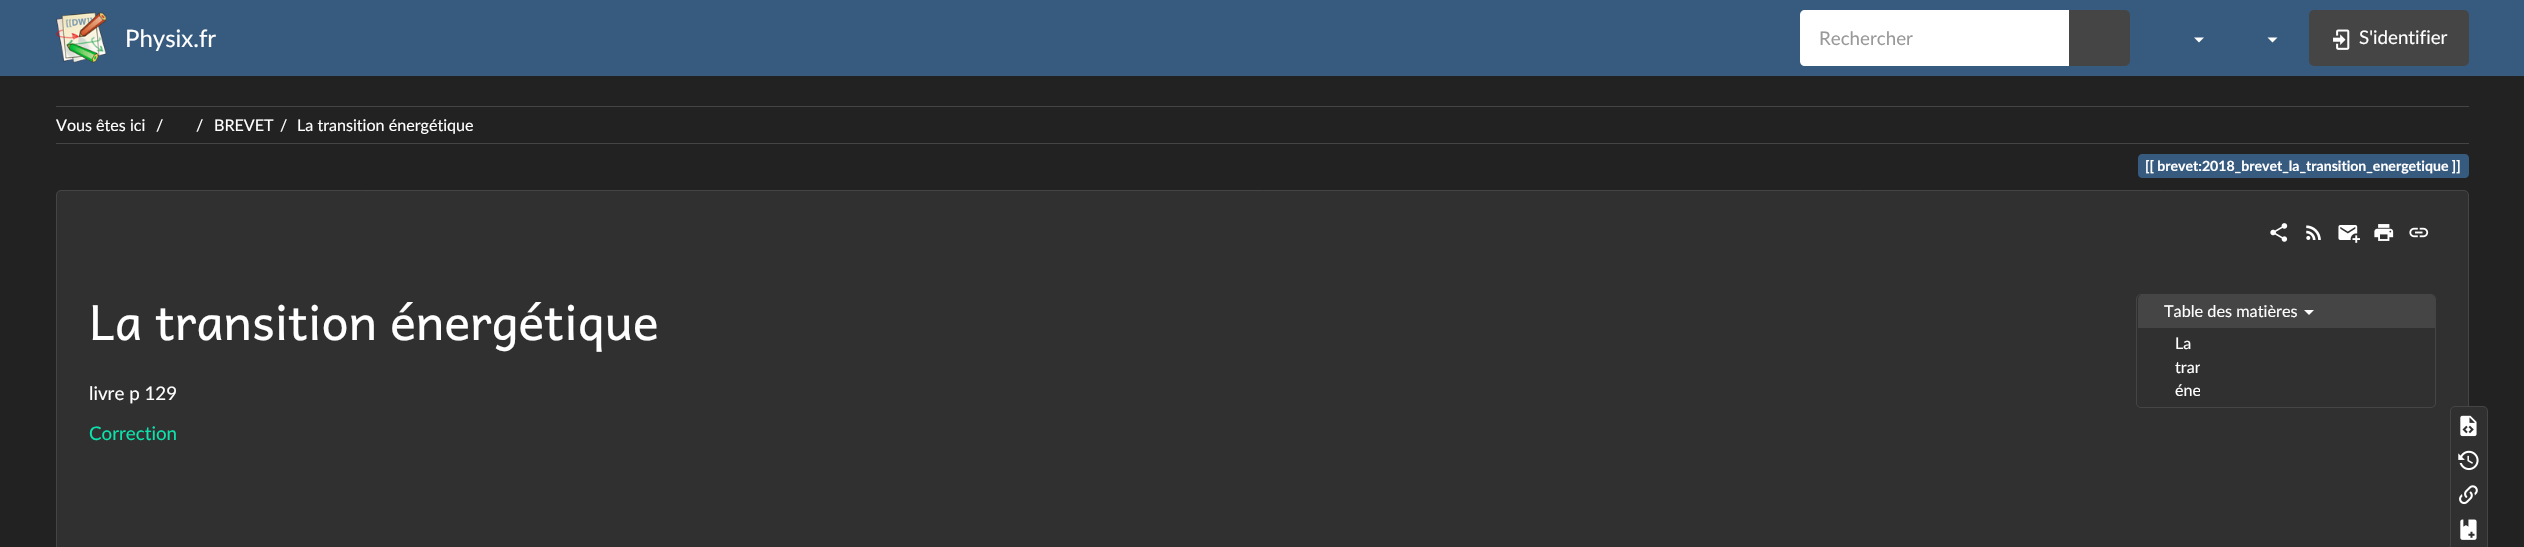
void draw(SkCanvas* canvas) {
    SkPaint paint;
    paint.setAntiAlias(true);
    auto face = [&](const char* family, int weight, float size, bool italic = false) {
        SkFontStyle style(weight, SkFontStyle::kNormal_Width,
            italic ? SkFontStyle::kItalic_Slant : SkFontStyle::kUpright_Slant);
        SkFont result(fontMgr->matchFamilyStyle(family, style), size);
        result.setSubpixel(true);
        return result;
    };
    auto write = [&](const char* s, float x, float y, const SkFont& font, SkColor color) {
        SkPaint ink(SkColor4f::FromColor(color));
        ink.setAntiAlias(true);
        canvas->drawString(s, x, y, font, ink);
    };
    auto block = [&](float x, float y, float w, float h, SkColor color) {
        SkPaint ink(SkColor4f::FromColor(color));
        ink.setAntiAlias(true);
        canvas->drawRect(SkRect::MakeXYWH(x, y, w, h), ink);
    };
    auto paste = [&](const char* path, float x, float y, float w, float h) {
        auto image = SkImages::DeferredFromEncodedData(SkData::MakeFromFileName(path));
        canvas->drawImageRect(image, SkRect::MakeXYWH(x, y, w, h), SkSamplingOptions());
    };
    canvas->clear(SkColorSetRGB(34, 34, 34));
    block(0, 0, 2524, 76, SkColorSetRGB(55, 90, 127));
    paste("pic1.png", 56, 12, 51, 51);
    auto kFont1 = face("Lato", 400, 24);
    write("Physix.fr", 125, 47, kFont1, SK_ColorWHITE);
    paint.setColor(SK_ColorWHITE);
    canvas->drawPath(SkPathBuilder().moveTo(1805, 10).lineTo(2070, 10).lineTo(2070, 66).lineTo(1805, 66).cubicTo(1802, 66, 1800, 64, 1800, 61).lineTo(1800, 15).cubicTo(1800, 12, 1802, 10, 1805, 10).close().detach(), paint);
    auto kFont2 = face("Lato", 400, 18.75f);
    write("Rechercher", 1819, 45, kFont2, SkColorSetRGB(153, 153, 153));
    paint.setColor(SkColorSetRGB(70, 69, 69));
    canvas->drawPath(SkPathBuilder().moveTo(2070.5f, 11.5f).lineTo(2125, 11.5f).cubicTo(2127, 11.5f, 2128.5f, 13, 2128.5f, 15).lineTo(2128.5f, 61).cubicTo(2128.5f, 63, 2127, 64.5f, 2125, 64.5f).lineTo(2070.5f, 64.5f).close().detach(), paint);
    paint.setStyle(SkPaint::kStroke_Style);
    paint.setStrokeWidth(3);
    canvas->drawPath(SkPathBuilder().moveTo(2070.5f, 11.5f).lineTo(2125, 11.5f).cubicTo(2127, 11.5f, 2128.5f, 13, 2128.5f, 15).lineTo(2128.5f, 61).cubicTo(2128.5f, 63, 2127, 64.5f, 2125, 64.5f).lineTo(2070.5f, 64.5f).close().detach(), paint);
    paint.setStyle(SkPaint::kFill_Style);
    paint.setColor(SK_ColorWHITE);
    canvas->drawPath(SkPathBuilder().moveTo(2194, 37.5f).lineTo(2204, 37.5f).lineTo(2199, 42.5f).close().detach(), paint);
    canvas->drawPath(SkPathBuilder().moveTo(2267.5f, 37.5f).lineTo(2277.5f, 37.5f).lineTo(2272.5f, 42.5f).close().detach(), paint);
    paint.setColor(SkColorSetRGB(70, 69, 69));
    canvas->drawRoundRect(SkRect::MakeXYWH(2310.5f, 11.5f, 157, 53), 3.5f, 3.5f, paint);
    paint.setStyle(SkPaint::kStroke_Style);
    canvas->drawRoundRect(SkRect::MakeXYWH(2310.5f, 11.5f, 157, 53), 3.5f, 3.5f, paint);
    paste("pic2.png", 2333, 29, 17, 21);
    write("S'identifier", 2359, 44, kFont2, SK_ColorWHITE);
    block(56, 106, 2413, 1, SkColorSetRGB(70, 69, 69));
    auto kFont3 = face("Lato", 400, 16.1f);
    write("Vous êtes ici", 56, 131, kFont3, SK_ColorWHITE);
    write("/", 156, 131, kFont3, SK_ColorWHITE);
    write("/", 196, 131, kFont3, SK_ColorWHITE);
    write("BREVET", 214, 131, kFont3, SK_ColorWHITE);
    write("/", 280, 131, kFont3, SK_ColorWHITE);
    write("La transition énergétique", 297, 131, kFont3, SK_ColorWHITE);
    block(56, 143, 2413, 1, SkColorSetRGB(70, 69, 69));
    paint.setStyle(SkPaint::kFill_Style);
    paint.setColor(SkColorSetRGB(55, 90, 127));
    canvas->drawPath(SkPathBuilder().moveTo(2142, 154).lineTo(2158, 154).lineTo(2158, 178).lineTo(2142, 178).cubicTo(2140, 178, 2138, 176, 2138, 174).lineTo(2138, 158).cubicTo(2138, 156, 2140, 154, 2142, 154).close().detach(), paint);
    block(2158, 154, 290, 24, SkColorSetRGB(55, 90, 127));
    canvas->drawPath(SkPathBuilder().moveTo(2448, 154).lineTo(2465, 154).cubicTo(2467, 154, 2469, 156, 2469, 158).lineTo(2469, 174).cubicTo(2469, 176, 2467, 178, 2465, 178).lineTo(2448, 178).close().detach(), paint);
    auto kFont4 = face("Lato", 700, 14.1f);
    write("[[ brevet:2018_brevet_la_transition_energetique ]]", 2145, 171, kFont4, SK_ColorWHITE);
    paint.setColor(SkColorSetRGB(48, 48, 48));
    canvas->drawRoundRect(SkRect::MakeXYWH(56.5f, 190.5f, 2412, 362), 4.5f, 4.5f, paint);
    paint.setStyle(SkPaint::kStroke_Style);
    paint.setStrokeWidth(1);
    paint.setColor(SkColorSetRGB(70, 69, 69));
    canvas->drawRoundRect(SkRect::MakeXYWH(56.5f, 190.5f, 2412, 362), 4.5f, 4.5f, paint);
    paste("pic3.png", 2270, 223, 18, 19);
    paste("pic4.png", 2306, 225, 15, 15);
    paste("pic5.png", 2338, 225, 22, 18);
    paste("pic6.png", 2374, 224, 20, 17);
    paste("pic7.png", 2409, 227, 20, 11);
    auto kFont5 = face("Andika", 400, 48.75f);
    write("La transition énergétique", 89, 340, kFont5, SK_ColorWHITE);
    write("livre p 129", 89, 400, kFont2, SK_ColorWHITE);
    write("Correction", 89, 440, kFont2, SkColorSetRGB(12, 227, 172));
    canvas->drawRoundRect(SkRect::MakeXYWH(2136.5f, 294.5f, 299, 113), 4.5f, 4.5f, paint);
    paint.setStyle(SkPaint::kFill_Style);
    canvas->drawPath(SkPathBuilder().moveTo(2142, 295).lineTo(2431, 295).cubicTo(2433, 295, 2435, 297, 2435, 299).lineTo(2435, 328).lineTo(2138, 328).lineTo(2138, 299).cubicTo(2138, 297, 2140, 295, 2142, 295).close().detach(), paint);
    auto kFont6 = face("Lato", 400, 16.25f);
    write("Table des matières", 2164, 317, kFont6, SK_ColorWHITE);
    paint.setColor(SK_ColorWHITE);
    canvas->drawPath(SkPathBuilder().moveTo(2304, 310).lineTo(2314, 310).lineTo(2309, 315).close().detach(), paint);
    write("La", 2175, 349, kFont3, SK_ColorWHITE);
    canvas->save();
    canvas->clipRect(SkRect::MakeXYWH(2138, 328, 62, 78));
    write("tran", 2175, 373, kFont3, SK_ColorWHITE);
    write("éne", 2175, 396, kFont3, SK_ColorWHITE);
    canvas->restore();
    paint.setColor(SkColorSetRGB(48, 48, 48));
    canvas->drawRoundRect(SkRect::MakeXYWH(2450.5f, 406.5f, 37, 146), 4.5f, 4.5f, paint);
    paint.setStyle(SkPaint::kStroke_Style);
    paint.setColor(SkColorSetRGB(70, 69, 69));
    canvas->drawRoundRect(SkRect::MakeXYWH(2450.5f, 406.5f, 37, 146), 4.5f, 4.5f, paint);
    paste("pic8.png", 2460, 415, 17, 22);
    paste("pic9.png", 2458, 450, 21, 21);
    paste("pic10.png", 2459, 485, 19, 20);
    paste("pic11.png", 2460, 519, 17, 21);
}
